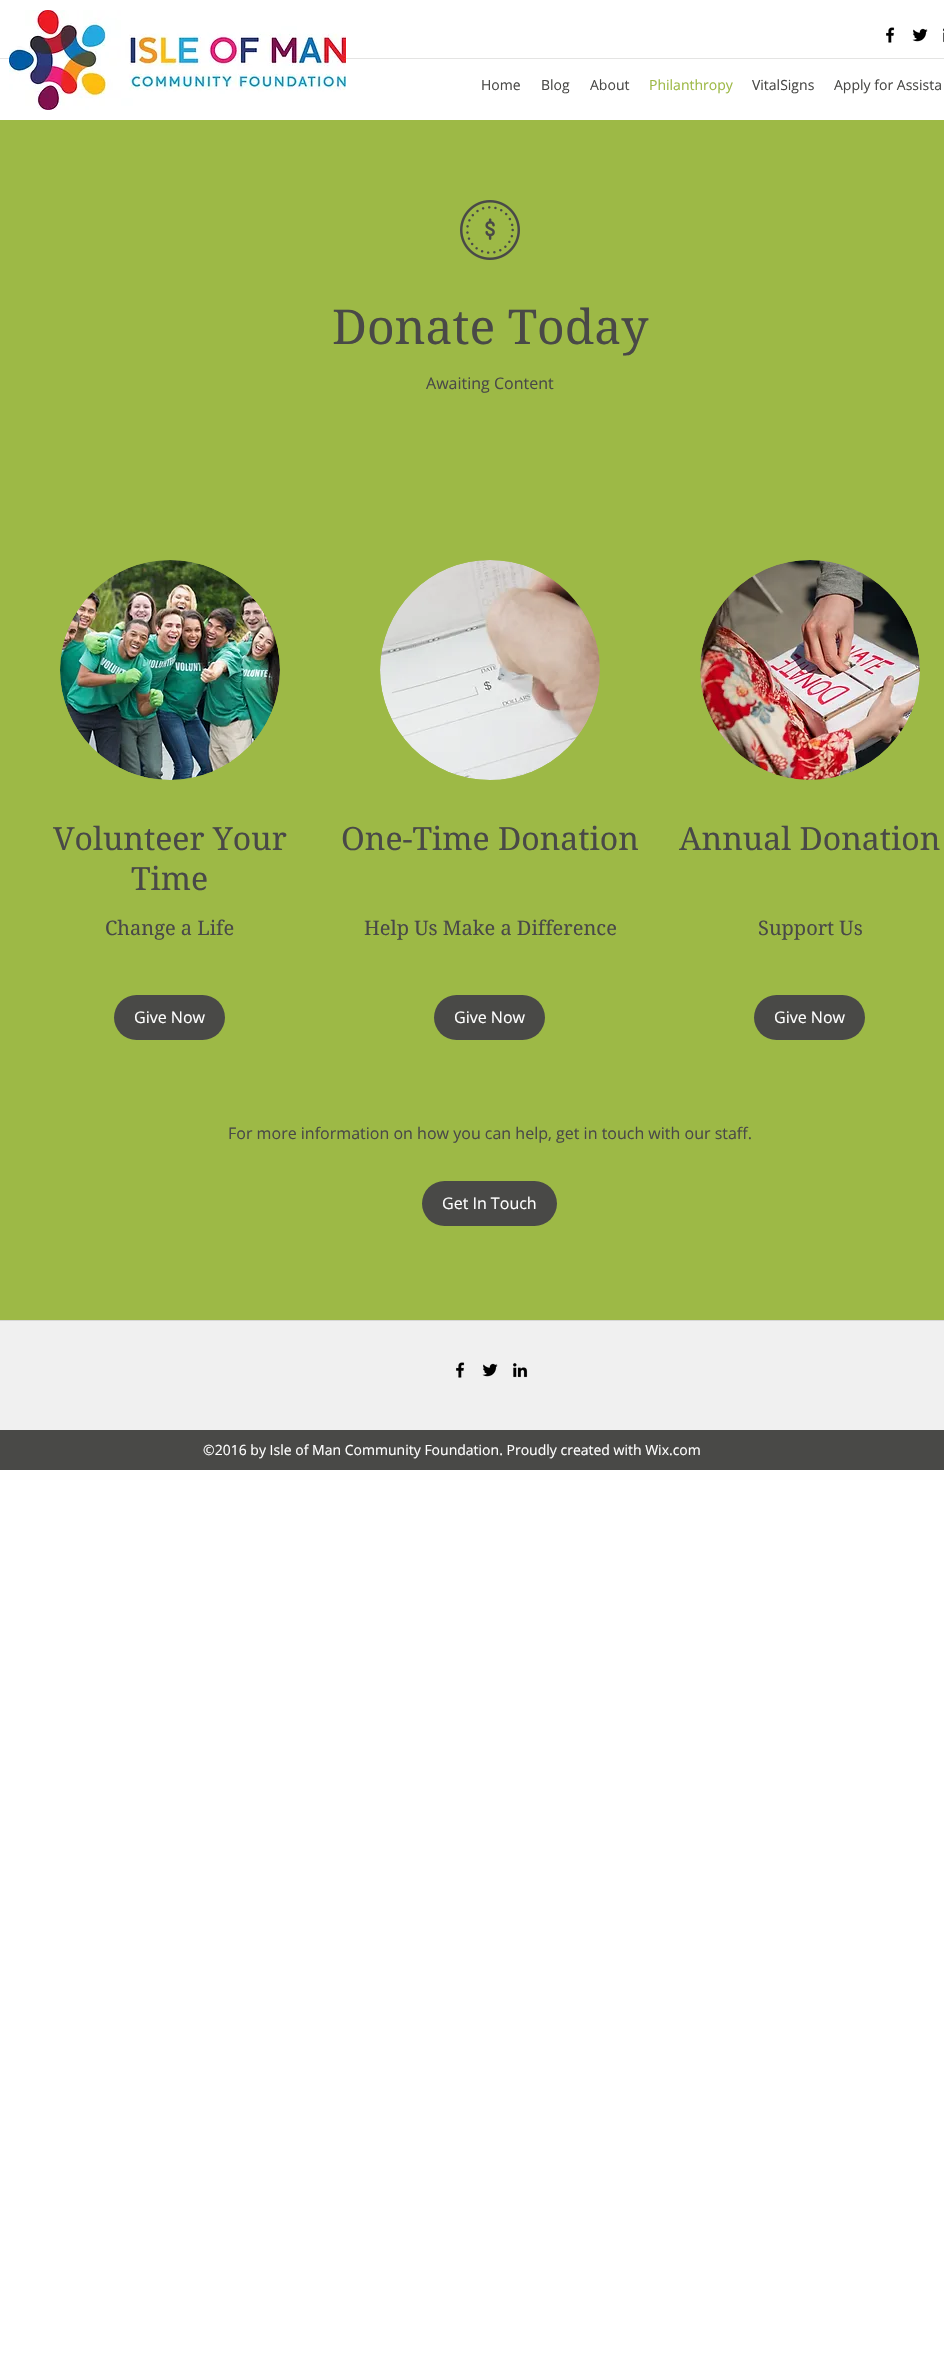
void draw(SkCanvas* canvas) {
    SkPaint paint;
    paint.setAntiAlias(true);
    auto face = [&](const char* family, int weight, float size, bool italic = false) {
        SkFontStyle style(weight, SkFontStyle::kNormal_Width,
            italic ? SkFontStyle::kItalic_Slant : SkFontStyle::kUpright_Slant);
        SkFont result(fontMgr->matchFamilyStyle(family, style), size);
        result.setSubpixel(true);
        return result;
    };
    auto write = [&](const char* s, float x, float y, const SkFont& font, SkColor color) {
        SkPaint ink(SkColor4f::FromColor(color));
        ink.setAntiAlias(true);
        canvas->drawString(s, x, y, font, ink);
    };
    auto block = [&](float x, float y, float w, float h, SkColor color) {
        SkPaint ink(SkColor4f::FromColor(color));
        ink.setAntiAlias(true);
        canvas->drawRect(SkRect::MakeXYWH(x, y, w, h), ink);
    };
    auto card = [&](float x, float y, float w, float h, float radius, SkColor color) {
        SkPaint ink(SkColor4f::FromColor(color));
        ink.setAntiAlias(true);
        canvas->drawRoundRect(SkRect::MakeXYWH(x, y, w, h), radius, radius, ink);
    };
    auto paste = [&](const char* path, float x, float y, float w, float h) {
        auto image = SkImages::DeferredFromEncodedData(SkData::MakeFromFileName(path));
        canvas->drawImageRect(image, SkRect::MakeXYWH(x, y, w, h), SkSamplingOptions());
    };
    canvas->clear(SK_ColorWHITE);
    block(0, 58, 944, 1, SkColorSetRGB(228, 228, 227));
    paste("pic1.png", 9, 10, 337, 100);
    paste("pic2.png", 886, 27, 9, 16);
    paste("pic3.png", 912, 28, 16, 14);
    paste("pic4.png", 943, 28, 1, 15);
    auto kFont1 = face("Open Sans", 400, 14);
    write("Home", 481, 90, kFont1, SkColorSetRGB(73, 73, 71));
    write("Blog", 541, 90, kFont1, SkColorSetRGB(73, 73, 71));
    write("About", 590, 90, kFont1, SkColorSetRGB(73, 73, 71));
    write("Philanthropy", 649, 90, kFont1, SkColorSetRGB(157, 185, 70));
    write("VitalSigns", 752, 90, kFont1, SkColorSetRGB(73, 73, 71));
    write("Apply for Assista", 834, 90, kFont1, SkColorSetRGB(73, 73, 71));
    block(0, 120, 944, 1200, SkColorSetRGB(157, 185, 70));
    paste("pic5.png", 460, 200, 60, 60);
    auto kFont2 = face("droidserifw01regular", 400, 48);
    write("Donate Today", 332, 344, kFont2, SkColorSetRGB(73, 73, 71));
    auto kFont3 = face("Open Sans", 400, 16);
    write("Awaiting Content", 426, 389, kFont3, SkColorSetRGB(73, 73, 71));
    paste("pic6.png", 60, 560, 220, 220);
    auto kFont4 = face("droidserifw01regular", 400, 32);
    write("Volunteer Your", 53, 850, kFont4, SkColorSetRGB(73, 73, 71));
    write("Time", 131, 890, kFont4, SkColorSetRGB(73, 73, 71));
    auto kFont5 = face("droidserifw01regular", 400, 20);
    write("Change a Life", 105, 935, kFont5, SkColorSetRGB(73, 73, 71));
    card(114, 995, 111, 45, 22.5f, SkColorSetRGB(73, 73, 71));
    write("Give Now", 134, 1023, kFont3, SK_ColorWHITE);
    paste("pic7.png", 380, 560, 220, 220);
    write("One-Time Donation", 341, 850, kFont4, SkColorSetRGB(73, 73, 71));
    write("Help Us Make a Difference", 364, 935, kFont5, SkColorSetRGB(73, 73, 71));
    card(434, 995, 111, 45, 22.5f, SkColorSetRGB(73, 73, 71));
    write("Give Now", 454, 1023, kFont3, SK_ColorWHITE);
    paste("pic8.png", 700, 560, 220, 220);
    write("Annual Donation", 679, 850, kFont4, SkColorSetRGB(73, 73, 71));
    write("Support Us", 758, 935, kFont5, SkColorSetRGB(73, 73, 71));
    card(754, 995, 111, 45, 22.5f, SkColorSetRGB(73, 73, 71));
    write("Give Now", 774, 1023, kFont3, SK_ColorWHITE);
    write("For more information on how you can help, get in touch with our staff.", 228, 1139, kFont3, SkColorSetRGB(73, 73, 71));
    card(422, 1181, 135, 45, 22.5f, SkColorSetRGB(73, 73, 71));
    write("Get In Touch", 442, 1209, kFont3, SK_ColorWHITE);
    block(0, 1321, 944, 109, SkColorSetRGB(240, 240, 240));
    block(0, 1320, 944, 1, SkColorSetRGB(215, 215, 215));
    block(0, 1430, 944, 40, SkColorSetRGB(73, 73, 71));
    paste("pic9.png", 456, 1362, 9, 16);
    paste("pic10.png", 482, 1363, 16, 14);
    paste("pic11.png", 513, 1363, 15, 15);
    write("©2016 by Isle of Man Community Foundation. Proudly created with Wix.com", 203, 1455, kFont1, SK_ColorWHITE);
}
